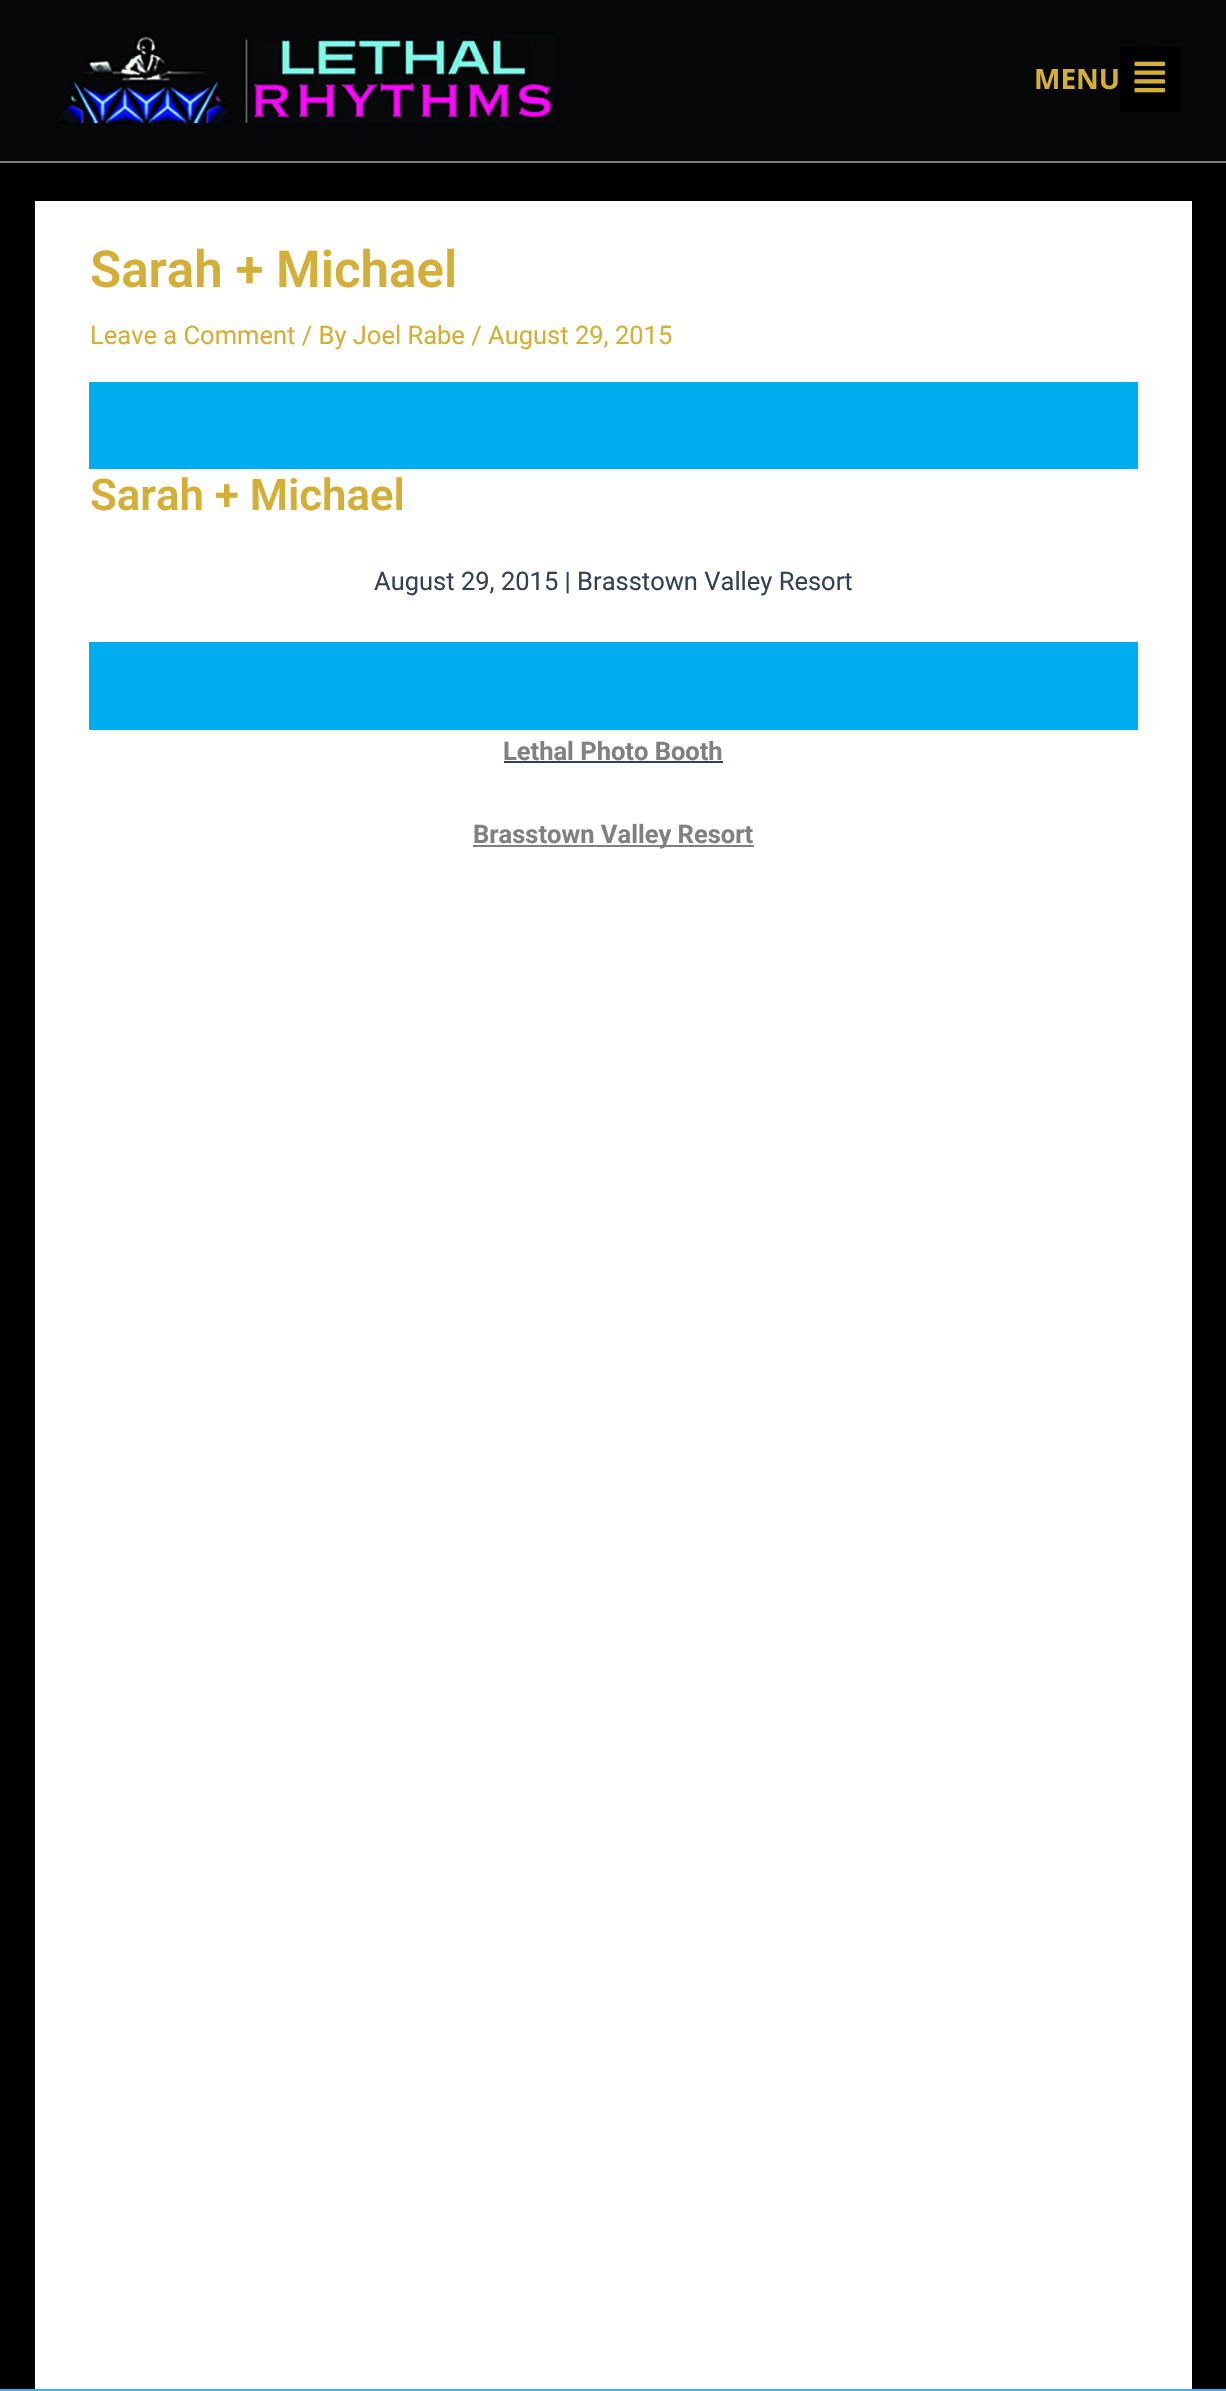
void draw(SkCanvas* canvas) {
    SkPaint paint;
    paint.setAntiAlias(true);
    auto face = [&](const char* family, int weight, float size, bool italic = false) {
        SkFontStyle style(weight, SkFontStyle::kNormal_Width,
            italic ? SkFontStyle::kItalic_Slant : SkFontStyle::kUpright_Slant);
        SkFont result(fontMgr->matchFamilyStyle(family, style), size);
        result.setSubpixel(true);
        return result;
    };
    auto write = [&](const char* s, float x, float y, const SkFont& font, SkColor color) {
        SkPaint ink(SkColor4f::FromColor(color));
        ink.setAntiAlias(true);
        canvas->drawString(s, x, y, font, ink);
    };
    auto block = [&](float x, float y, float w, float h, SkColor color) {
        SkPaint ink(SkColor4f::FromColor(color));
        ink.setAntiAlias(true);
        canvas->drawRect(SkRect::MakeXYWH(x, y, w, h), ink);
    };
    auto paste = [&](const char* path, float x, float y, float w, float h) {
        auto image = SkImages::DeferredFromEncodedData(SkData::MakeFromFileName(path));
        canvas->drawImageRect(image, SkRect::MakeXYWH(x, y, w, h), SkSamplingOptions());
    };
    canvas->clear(SK_ColorBLACK);
    block(0, 0, 1226, 161, SkColorSetRGB(4, 6, 7));
    block(0, 161, 1226, 2, SkColorSetRGB(122, 122, 122));
    paste("pic1.png", 59, 35, 495, 88);
    auto kFont1 = face("Open Sans", 700, 28);
    write("MENU", 1034, 89, kFont1, SkColorSetRGB(212, 175, 55));
    block(1120, 47, 60, 65, SK_ColorBLACK);
    paste("pic2.png", 1134, 61, 32, 32);
    block(35, 201, 1157, 2188, SK_ColorWHITE);
    auto kFont2 = face("Roboto", 600, 51);
    write("Sarah + Michael", 90, 287, kFont2, SkColorSetRGB(212, 175, 55));
    auto kFont3 = face("Roboto", 400, 25.5f);
    write("Leave a Comment / By Joel Rabe / August 29, 2015", 90, 344, kFont3, SkColorSetRGB(212, 175, 55));
    block(89, 382, 1049, 348, SkColorSetRGB(0, 173, 239));
    block(89, 469, 1049, 173, SK_ColorWHITE);
    auto kFont4 = face("Roboto", 600, 43.75f);
    write("Sarah + Michael", 90, 510, kFont4, SkColorSetRGB(212, 175, 55));
    write("August 29, 2015 | Brasstown Valley Resort", 374, 590, kFont3, SkColorSetRGB(51, 65, 85));
    auto kFont5 = face("Roboto", 700, 25.5f);
    write("Lethal Photo Booth", 503, 760, kFont5, SkColorSetRGB(128, 128, 128));
    block(504, 761, 219, 2, SkColorSetRGB(51, 65, 85));
    block(473, 845, 281, 2, SkColorSetRGB(128, 128, 128));
    write("Brasstown Valley Resort", 473, 843, kFont5, SkColorSetRGB(128, 128, 128));
    block(0, 2389, 1226, 2, SkColorSetRGB(62, 172, 249));
}
